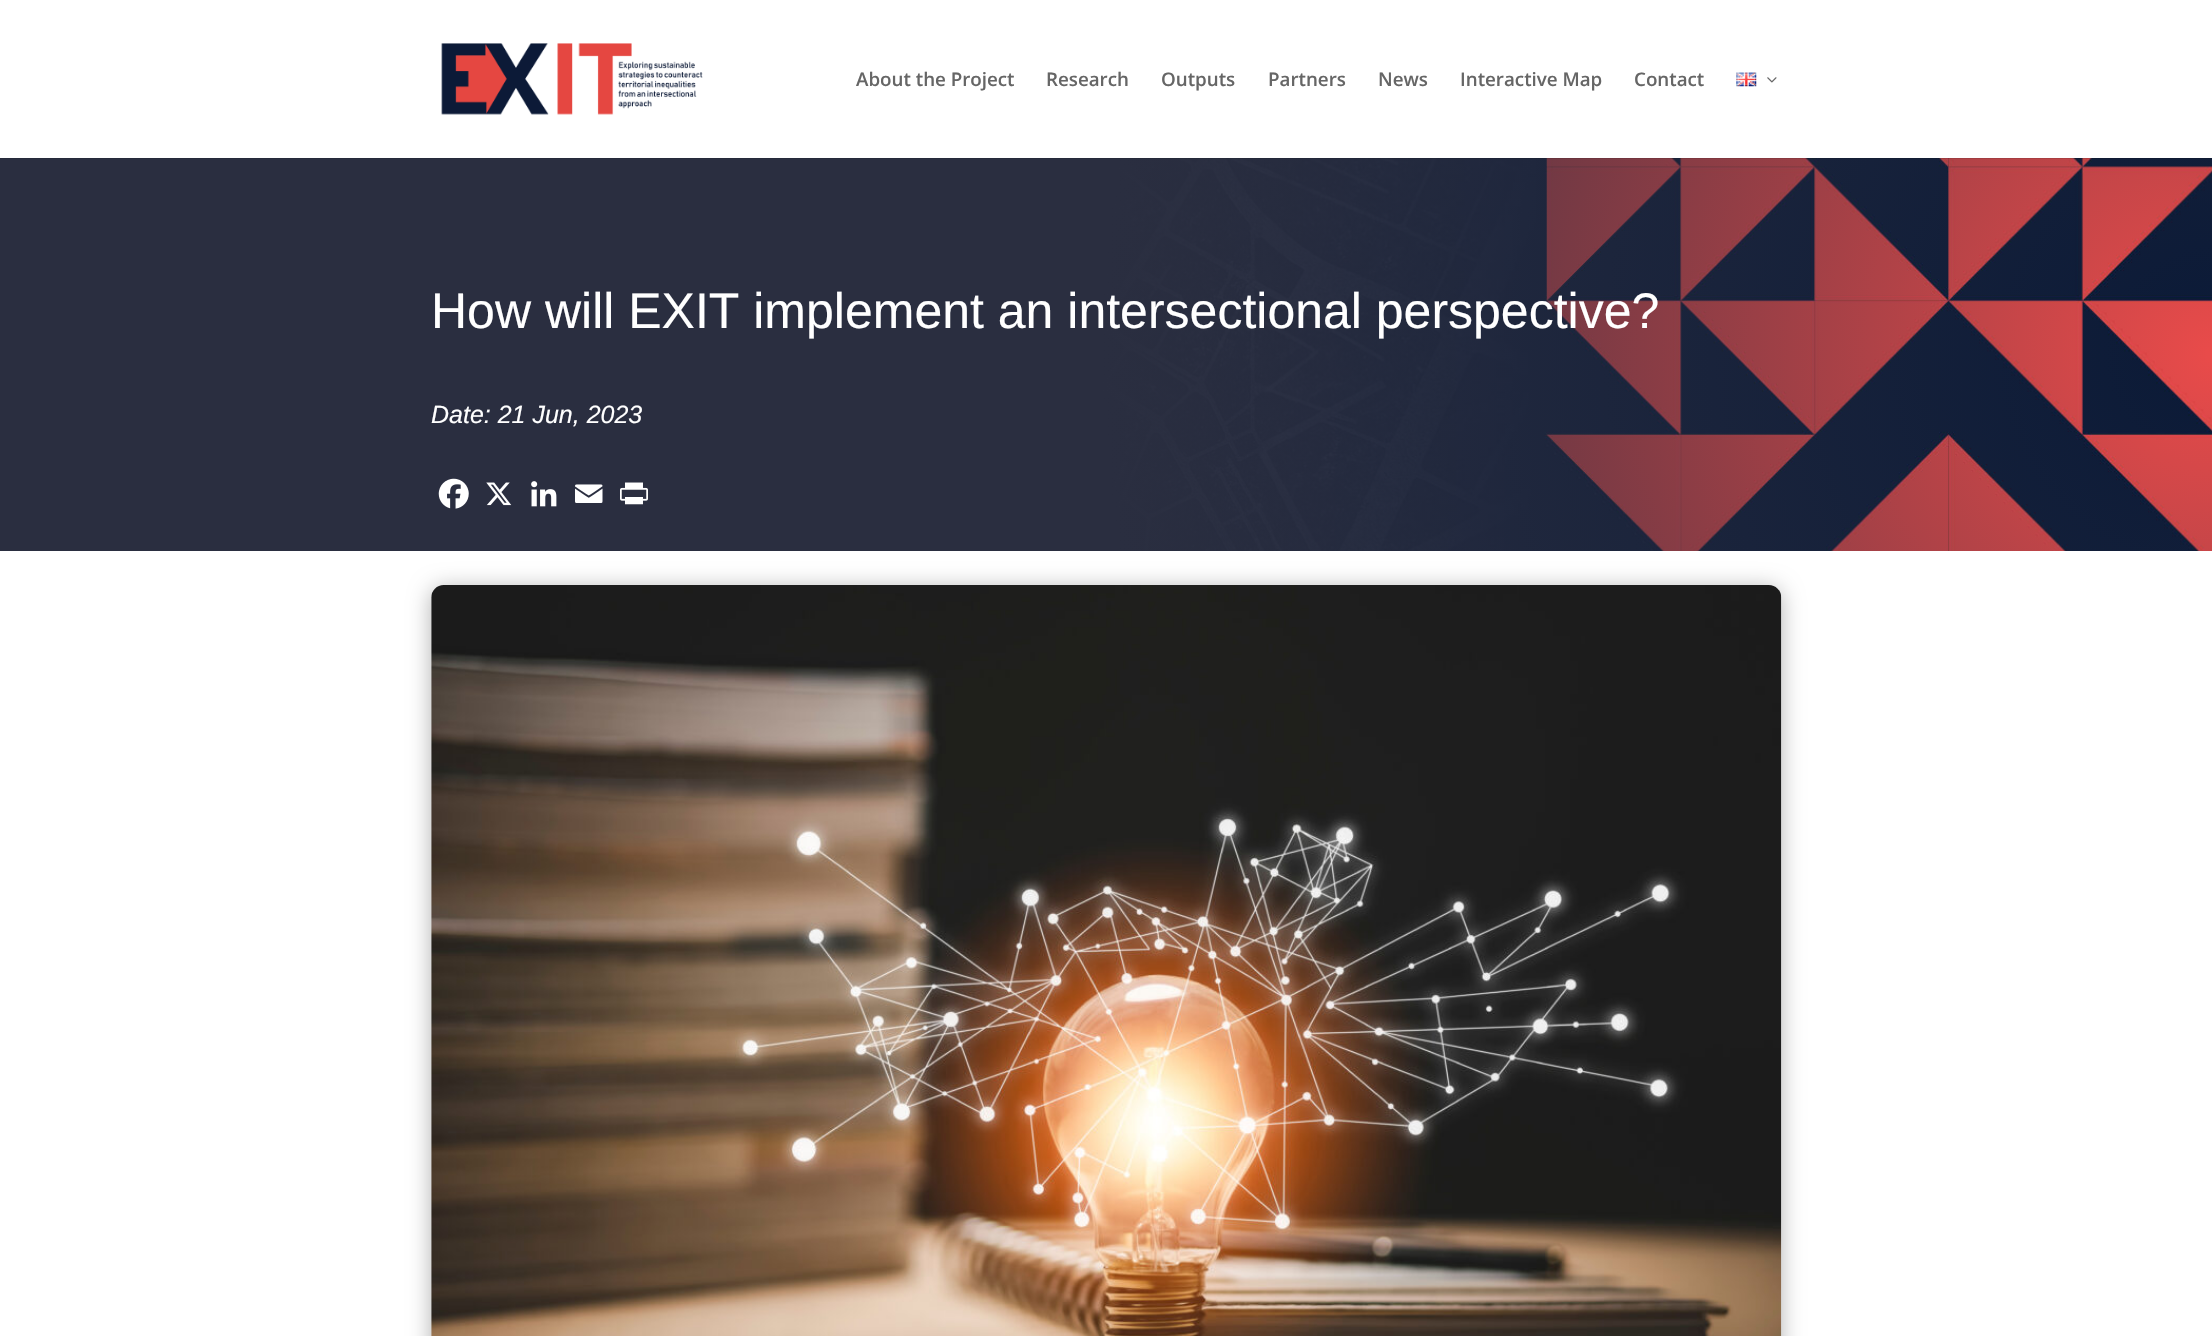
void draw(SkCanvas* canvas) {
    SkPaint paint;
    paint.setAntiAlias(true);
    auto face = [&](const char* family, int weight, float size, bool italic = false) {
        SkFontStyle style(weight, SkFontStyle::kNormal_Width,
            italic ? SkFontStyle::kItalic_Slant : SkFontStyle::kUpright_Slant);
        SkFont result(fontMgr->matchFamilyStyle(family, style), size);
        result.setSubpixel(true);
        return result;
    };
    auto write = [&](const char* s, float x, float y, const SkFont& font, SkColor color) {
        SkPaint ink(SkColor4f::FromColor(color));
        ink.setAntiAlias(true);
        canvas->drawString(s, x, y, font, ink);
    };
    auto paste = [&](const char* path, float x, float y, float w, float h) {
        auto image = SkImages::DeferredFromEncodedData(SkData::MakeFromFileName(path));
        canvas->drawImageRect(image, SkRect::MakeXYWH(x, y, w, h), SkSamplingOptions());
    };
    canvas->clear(SK_ColorWHITE);
    paste("pic4.png", 0, 158, 2212, 393);
    paint.setColor(SkColorSetARGB(26, 0, 0, 0));
    canvas->drawPath(SkPathBuilder().moveTo(0, 158).lineTo(0, 159).lineTo(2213, 159).lineTo(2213, 1).lineTo(2212, 1).lineTo(2212, 158).close().detach(), paint);
    paste("pic1.png", 441, 43, 262, 72);
    auto kFont1 = face("Open Sans", 600, 18.75f);
    write("About the Project", 856, 86, kFont1, SkColorSetRGB(102, 102, 102));
    write("Research", 1046, 86, kFont1, SkColorSetRGB(102, 102, 102));
    write("Outputs", 1161, 86, kFont1, SkColorSetRGB(102, 102, 102));
    write("Partners", 1268, 86, kFont1, SkColorSetRGB(102, 102, 102));
    write("News", 1378, 86, kFont1, SkColorSetRGB(102, 102, 102));
    write("Interactive Map", 1460, 86, kFont1, SkColorSetRGB(102, 102, 102));
    write("Contact", 1634, 86, kFont1, SkColorSetRGB(102, 102, 102));
    paste("pic2.png", 1736, 72, 21, 15);
    paste("pic3.png", 1767, 77, 10, 6);
    auto kFont2 = face("Liberation Sans", 400, 50);
    write("How will EXIT implement an intersectional perspective?", 431, 328, kFont2, SK_ColorWHITE);
    auto kFont3 = face("Liberation Sans", 400, 25, true);
    write("Date: 21 Jun, 2023", 431, 423, kFont3, SK_ColorWHITE);
    paste("pic5.png", 438, 478, 31, 31);
    paste("pic6.png", 486, 482, 26, 24);
    paste("pic7.png", 531, 481, 26, 26);
    paste("pic8.png", 575, 484, 28, 19);
    paste("pic9.png", 620, 482, 28, 23);
    paint.setColor(SkColorSetARGB(77, 0, 0, 0));
    paint.setMaskFilter(SkMaskFilter::MakeBlur(kNormal_SkBlurStyle, 11));
    canvas->drawRoundRect(SkRect::MakeXYWH(431, 588, 1350, 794), 13, 13, paint);
    paint.setMaskFilter(nullptr);
    paste("pic10.png", 431, 585, 1351, 751);
}
